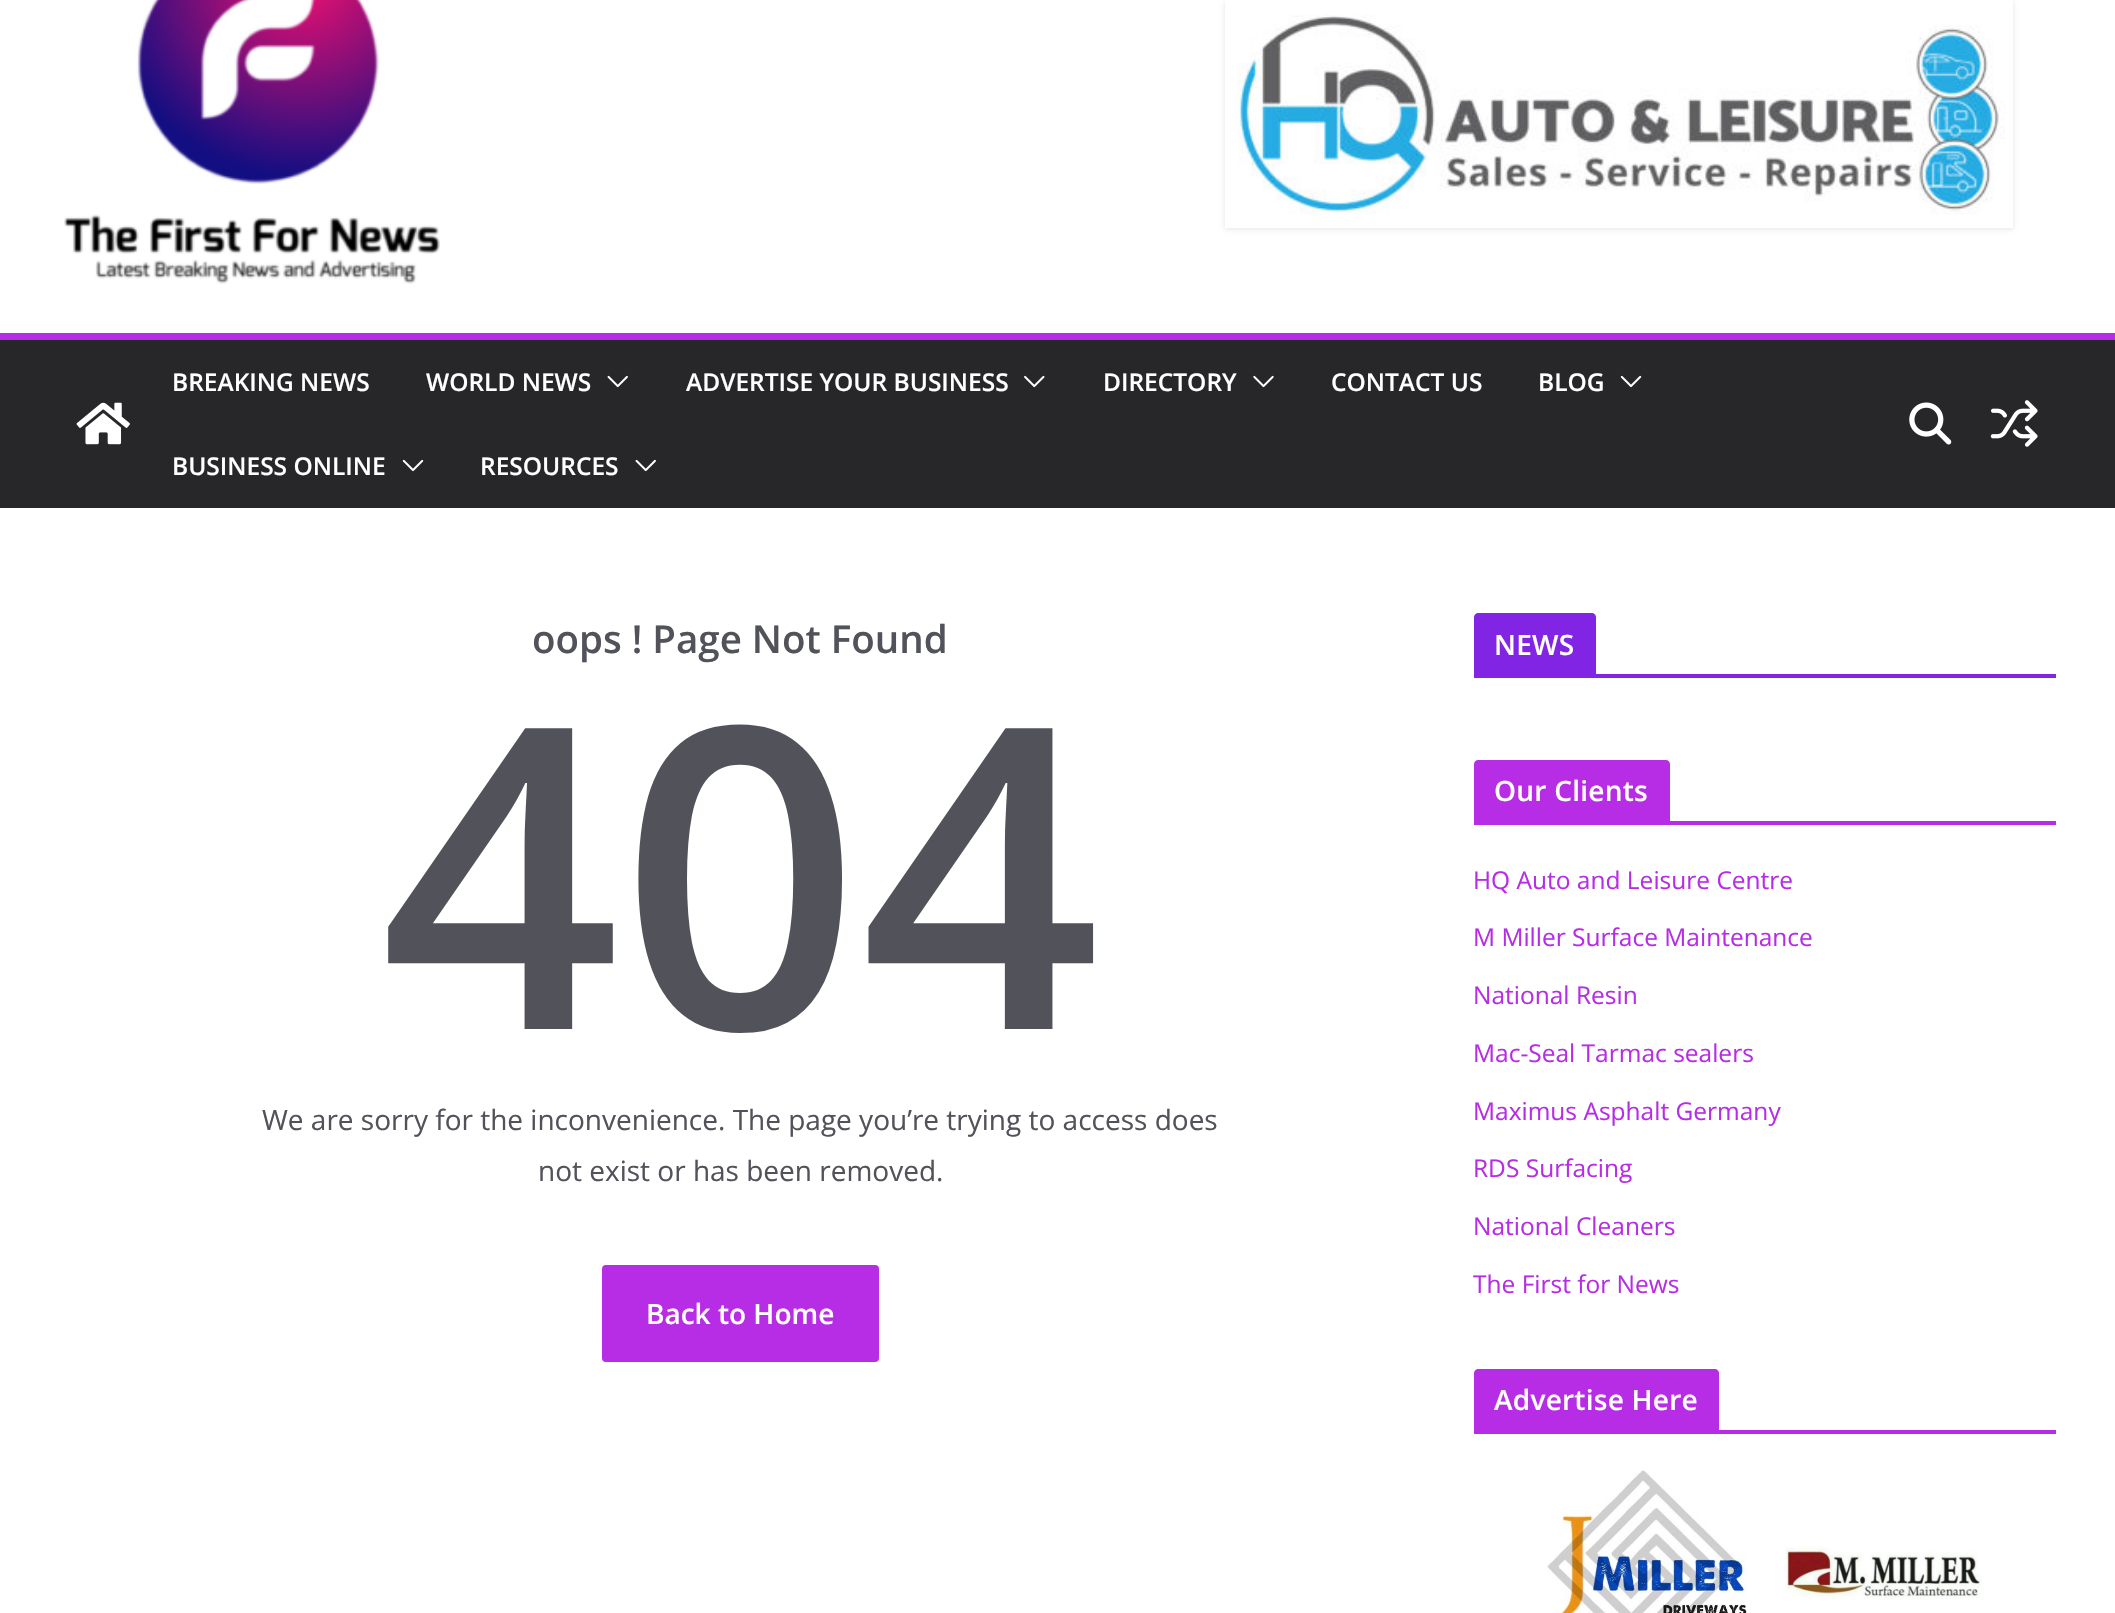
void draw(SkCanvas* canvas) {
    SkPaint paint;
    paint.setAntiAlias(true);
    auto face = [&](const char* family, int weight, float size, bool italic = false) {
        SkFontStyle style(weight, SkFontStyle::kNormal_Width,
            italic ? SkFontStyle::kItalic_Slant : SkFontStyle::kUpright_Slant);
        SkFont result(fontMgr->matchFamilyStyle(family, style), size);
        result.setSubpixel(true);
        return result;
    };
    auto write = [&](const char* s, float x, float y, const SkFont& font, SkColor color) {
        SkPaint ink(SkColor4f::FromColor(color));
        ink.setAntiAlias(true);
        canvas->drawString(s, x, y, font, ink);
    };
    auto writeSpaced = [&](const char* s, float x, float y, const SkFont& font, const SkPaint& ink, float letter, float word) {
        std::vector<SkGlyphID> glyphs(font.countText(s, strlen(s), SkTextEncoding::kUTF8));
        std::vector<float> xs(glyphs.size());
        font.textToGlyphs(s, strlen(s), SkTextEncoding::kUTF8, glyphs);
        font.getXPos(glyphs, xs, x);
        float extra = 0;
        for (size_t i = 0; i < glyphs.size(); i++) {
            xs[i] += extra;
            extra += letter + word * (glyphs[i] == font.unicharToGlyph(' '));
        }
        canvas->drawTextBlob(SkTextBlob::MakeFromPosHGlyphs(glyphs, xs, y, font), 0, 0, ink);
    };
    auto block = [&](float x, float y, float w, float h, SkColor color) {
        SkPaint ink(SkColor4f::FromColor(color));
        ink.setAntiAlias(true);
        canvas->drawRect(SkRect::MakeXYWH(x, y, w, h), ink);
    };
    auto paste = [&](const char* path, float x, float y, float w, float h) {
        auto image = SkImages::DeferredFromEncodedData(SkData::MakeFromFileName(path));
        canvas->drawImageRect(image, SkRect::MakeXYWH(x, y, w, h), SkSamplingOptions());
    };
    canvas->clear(SK_ColorWHITE);
    paste("pic1.png", 64, 0, 376, 284);
    canvas->save();
    canvas->clipPath(SkPathBuilder(SkPathFillType::kEvenOdd).moveTo(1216, 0).lineTo(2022, 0).lineTo(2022, 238).lineTo(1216, 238).close().moveTo(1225, 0).lineTo(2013, 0).lineTo(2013, 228).lineTo(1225, 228).close().detach(), true);
    paint.setColor(SkColorSetARGB(26, 0, 0, 0));
    paint.setMaskFilter(SkMaskFilter::MakeBlur(kNormal_SkBlurStyle, 2.5f));
    canvas->drawRect(SkRect::MakeXYWH(1225, 2, 788, 227), paint);
    paint.setMaskFilter(nullptr);
    canvas->restore();
    paste("pic2.png", 1237, 14, 769, 201);
    block(0, 340, 2115, 168, SkColorSetRGB(39, 39, 42));
    block(0, 333, 2115, 7, SkColorSetRGB(183, 45, 229));
    paste("pic3.png", 76, 402, 54, 43);
    auto kFont1 = face("Open Sans", 600, 24.5f);
    write("BREAKING NEWS", 172, 391, kFont1, SK_ColorWHITE);
    write("WORLD NEWS", 426, 391, kFont1, SK_ColorWHITE);
    paste("pic4.png", 607, 375, 21, 13);
    write("ADVERTISE YOUR BUSINESS", 686, 391, kFont1, SK_ColorWHITE);
    paste("pic5.png", 1024, 375, 21, 13);
    write("DIRECTORY", 1103, 391, kFont1, SK_ColorWHITE);
    paste("pic6.png", 1253, 375, 21, 13);
    write("CONTACT US", 1331, 391, kFont1, SK_ColorWHITE);
    write("BLOG", 1538, 391, kFont1, SK_ColorWHITE);
    paste("pic7.png", 1620, 375, 22, 13);
    write("BUSINESS ONLINE", 172, 475, kFont1, SK_ColorWHITE);
    paste("pic7.png", 402, 459, 22, 13);
    write("RESOURCES", 480, 475, kFont1, SK_ColorWHITE);
    paste("pic4.png", 635, 459, 21, 13);
    paste("pic8.png", 1909, 402, 43, 43);
    paste("pic9.png", 1990, 400, 48, 47);
    auto kFont2 = face("Open Sans", 600, 38.5f);
    write("oops ! Page Not Found", 532, 653, kFont2, SkColorSetRGB(82, 82, 91));
    auto kFont3 = face("Open Sans", 600, 420);
    write("404", 380, 1029, kFont3, SkColorSetRGB(82, 82, 91));
    auto kFont4 = face("Open Sans", 400, 28);
    write("We are sorry for the inconvenience. The page you’re trying to access does", 262, 1130, kFont4, SkColorSetRGB(82, 82, 91));
    write("not exist or has been removed.", 538, 1181, kFont4, SkColorSetRGB(82, 82, 91));
    paint.setColor(SkColorSetRGB(183, 45, 229));
    canvas->drawRoundRect(SkRect::MakeXYWH(603, 1266, 275, 95), 3, 3, paint);
    paint.setStyle(SkPaint::kStroke_Style);
    paint.setStrokeWidth(2);
    canvas->drawRoundRect(SkRect::MakeXYWH(603, 1266, 275, 95), 3, 3, paint);
    auto kFont5 = face("Open Sans", 600, 28);
    write("Back to Home", 646, 1324, kFont5, SK_ColorWHITE);
    block(1474, 674, 582, 4, SkColorSetRGB(130, 36, 227));
    paint.setStyle(SkPaint::kFill_Style);
    paint.setColor(SkColorSetRGB(130, 36, 227));
    canvas->drawPath(SkPathBuilder().moveTo(1478, 613).lineTo(1592, 613).cubicTo(1594, 613, 1596, 615, 1596, 617).lineTo(1596, 674).lineTo(1474, 674).lineTo(1474, 617).cubicTo(1474, 615, 1476, 613, 1478, 613).close().detach(), paint);
    paint.setColor(SK_ColorWHITE);
    writeSpaced("NEWS", 1494, 655, kFont5, paint, 0.25f, 0);
    block(1474, 821, 582, 4, SkColorSetRGB(183, 45, 229));
    paint.setColor(SkColorSetRGB(183, 45, 229));
    canvas->drawPath(SkPathBuilder().moveTo(1478, 760).lineTo(1666, 760).cubicTo(1668, 760, 1670, 762, 1670, 764).lineTo(1670, 821).lineTo(1474, 821).lineTo(1474, 764).cubicTo(1474, 762, 1476, 760, 1478, 760).close().detach(), paint);
    paint.setColor(SK_ColorWHITE);
    writeSpaced("Our Clients", 1494, 801, kFont5, paint, 0.25f, 0);
    auto kFont6 = face("Open Sans", 400, 24.5f);
    write("HQ Auto and Leisure Centre", 1473, 889, kFont6, SkColorSetRGB(183, 45, 229));
    write("M Miller Surface Maintenance", 1473, 946, kFont6, SkColorSetRGB(183, 45, 229));
    write("National Resin", 1473, 1004, kFont6, SkColorSetRGB(183, 45, 229));
    write("Mac-Seal Tarmac sealers", 1473, 1062, kFont6, SkColorSetRGB(183, 45, 229));
    write("Maximus Asphalt Germany", 1473, 1120, kFont6, SkColorSetRGB(183, 45, 229));
    write("RDS Surfacing", 1473, 1177, kFont6, SkColorSetRGB(183, 45, 229));
    write("National Cleaners", 1473, 1235, kFont6, SkColorSetRGB(183, 45, 229));
    write("The First for News", 1473, 1293, kFont6, SkColorSetRGB(183, 45, 229));
    block(1474, 1430, 582, 4, SkColorSetRGB(183, 45, 229));
    paint.setColor(SkColorSetRGB(183, 45, 229));
    canvas->drawPath(SkPathBuilder().moveTo(1478, 1369).lineTo(1715, 1369).cubicTo(1717, 1369, 1719, 1371, 1719, 1373).lineTo(1719, 1430).lineTo(1474, 1430).lineTo(1474, 1373).cubicTo(1474, 1371, 1476, 1369, 1478, 1369).close().detach(), paint);
    paint.setColor(SK_ColorWHITE);
    writeSpaced("Advertise Here", 1494, 1410, kFont5, paint, 0.25f, 0);
    paste("pic10.png", 1547, 1470, 200, 143);
    paste("pic11.png", 1784, 1546, 198, 53);
}
